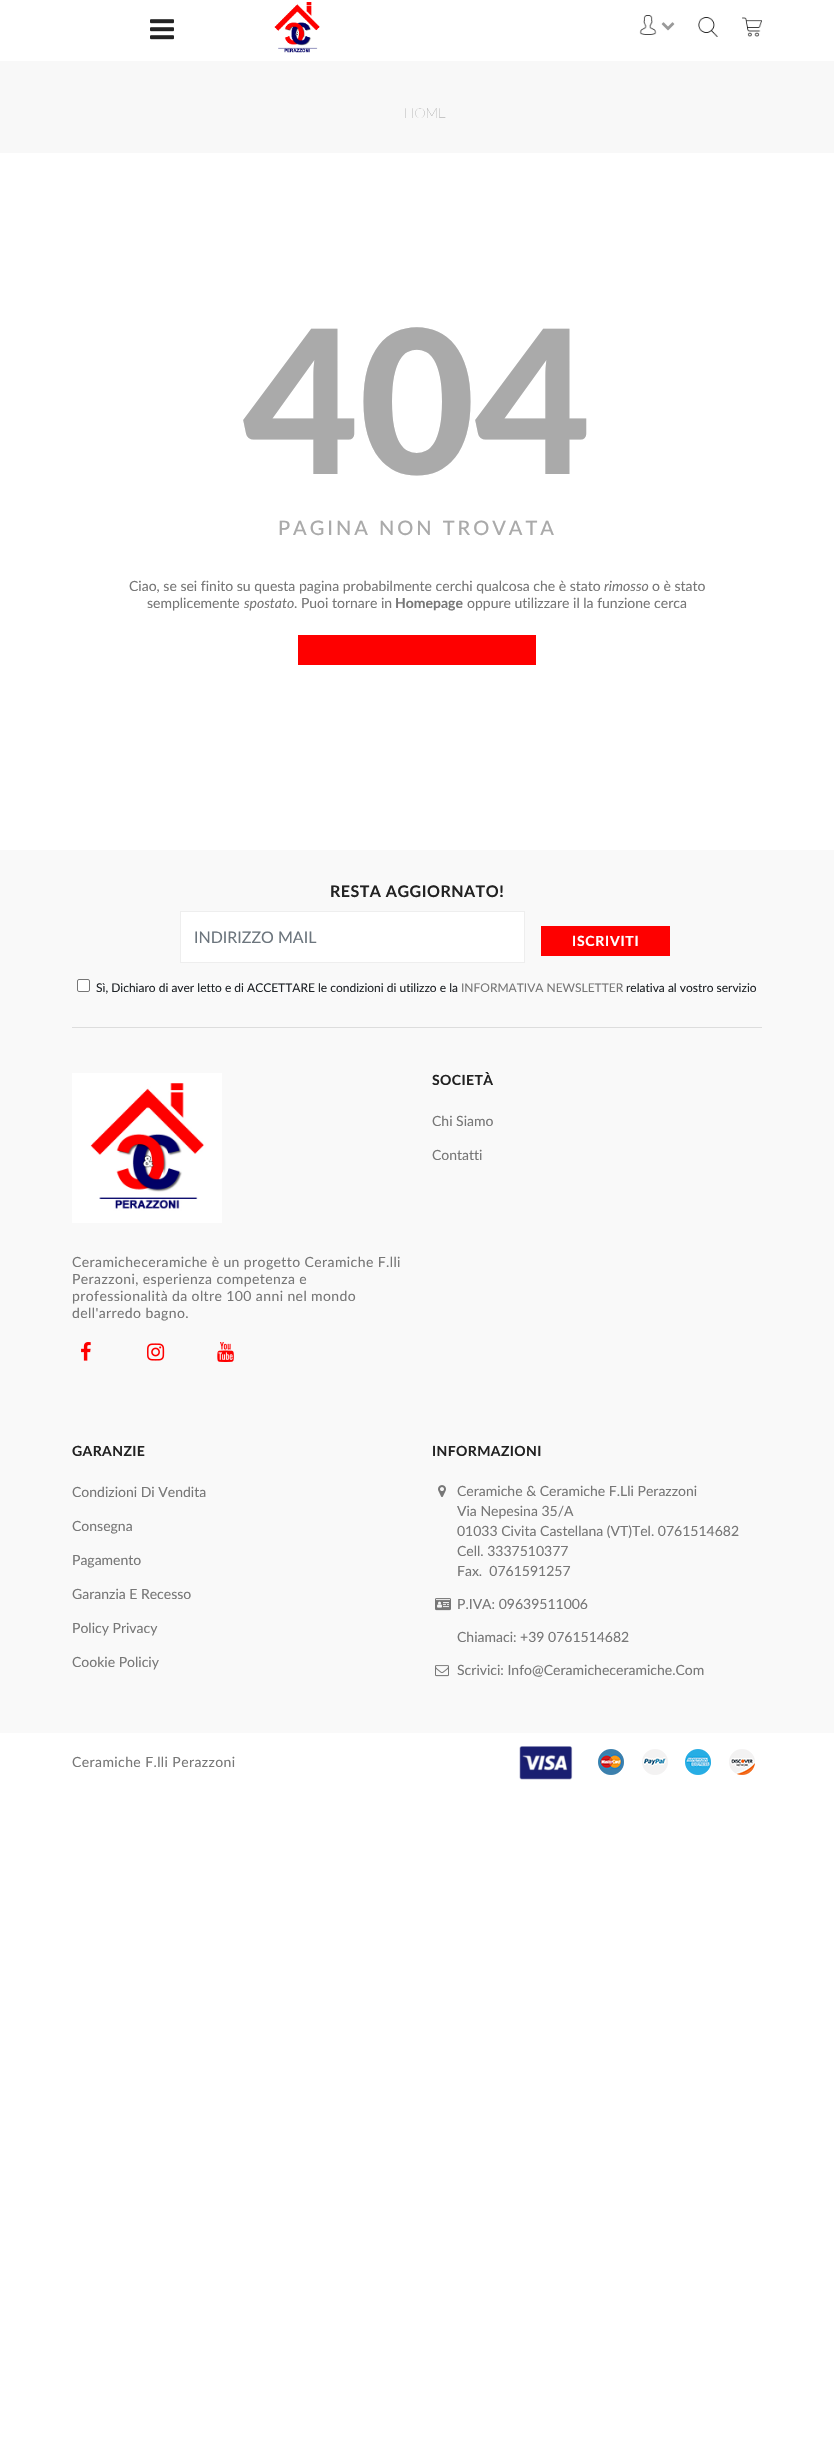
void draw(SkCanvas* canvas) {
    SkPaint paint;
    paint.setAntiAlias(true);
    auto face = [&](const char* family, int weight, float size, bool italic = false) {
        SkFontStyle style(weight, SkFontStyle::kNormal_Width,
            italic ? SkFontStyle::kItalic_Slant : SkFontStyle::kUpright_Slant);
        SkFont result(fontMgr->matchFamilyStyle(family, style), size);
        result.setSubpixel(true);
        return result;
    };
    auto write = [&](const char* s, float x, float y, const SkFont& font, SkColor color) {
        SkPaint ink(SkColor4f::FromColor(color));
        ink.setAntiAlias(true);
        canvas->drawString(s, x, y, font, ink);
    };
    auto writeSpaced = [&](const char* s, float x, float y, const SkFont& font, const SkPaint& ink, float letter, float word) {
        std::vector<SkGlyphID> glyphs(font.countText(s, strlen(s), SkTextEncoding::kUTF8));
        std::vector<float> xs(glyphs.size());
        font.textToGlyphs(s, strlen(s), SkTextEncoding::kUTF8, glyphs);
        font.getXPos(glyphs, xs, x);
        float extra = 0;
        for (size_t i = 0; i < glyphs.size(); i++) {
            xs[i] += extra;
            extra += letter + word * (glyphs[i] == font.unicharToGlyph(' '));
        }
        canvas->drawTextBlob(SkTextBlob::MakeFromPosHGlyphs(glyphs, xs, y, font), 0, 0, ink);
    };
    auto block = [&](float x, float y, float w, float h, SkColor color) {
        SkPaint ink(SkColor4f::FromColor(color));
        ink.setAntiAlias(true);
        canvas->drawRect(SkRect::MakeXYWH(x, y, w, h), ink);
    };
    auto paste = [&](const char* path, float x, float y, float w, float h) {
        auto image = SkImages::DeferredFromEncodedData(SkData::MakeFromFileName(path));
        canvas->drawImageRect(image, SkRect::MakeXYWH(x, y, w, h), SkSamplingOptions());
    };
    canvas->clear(SK_ColorWHITE);
    paste("pic1.png", 150, 19, 24, 21);
    paste("pic2.png", 274, 2, 46, 51);
    paste("pic3.png", 639, 15, 18, 20);
    paste("pic4.png", 661, 22, 14, 9);
    paste("pic5.png", 698, 17, 20, 20);
    paste("pic6.png", 742, 17, 20, 20);
    block(0, 61, 834, 92, SkColorSetRGB(248, 248, 248));
    auto kFont1 = face("Lato", 200, 14);
    write("HOME", 404, 118, kFont1, SkColorSetRGB(85, 85, 85));
    auto kFont2 = face("Lato", 900, 200);
    write("404", 243, 474, kFont2, SkColorSetRGB(170, 170, 170));
    auto kFont3 = face("Lato", 500, 20);
    paint.setColor(SkColorSetRGB(170, 170, 170));
    writeSpaced("PAGINA NON TROVATA", 278, 535, kFont3, paint, 3, 0);
    auto kFont4 = face("Lato", 400, 14);
    write("Ciao, se sei finito su questa pagina probabilmente cerchi qualcosa che è stato", 129, 591, kFont4, SkColorSetRGB(119, 119, 119));
    auto kFont5 = face("Lato", 400, 14, true);
    write("rimosso", 604, 591, kFont5, SkColorSetRGB(119, 119, 119));
    write("o è stato", 652, 591, kFont4, SkColorSetRGB(119, 119, 119));
    write("semplicemente", 147, 608, kFont4, SkColorSetRGB(119, 119, 119));
    write("spostato", 244, 608, kFont5, SkColorSetRGB(119, 119, 119));
    write(". Puoi tornare in", 294, 608, kFont4, SkColorSetRGB(119, 119, 119));
    auto kFont6 = face("Lato", 700, 14);
    write("Homepage", 395, 608, kFont6, SkColorSetRGB(119, 119, 119));
    write("oppure utilizzare il la funzione cerca", 467, 608, kFont4, SkColorSetRGB(119, 119, 119));
    {
        const SkColor colors[] = {SkColorSetRGB(254, 0, 0), SK_ColorWHITE};
        const float stops[] = {0.5f, 0.5f};
        const SkPoint ends[] = {{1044, 1093}, {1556, 207}};
        paint.setShader(SkGradientShader::MakeLinear(ends, colors, stops, 2, SkTileMode::kClamp));
        paint.setAlpha(255);
    }
    canvas->drawRect(SkRect::MakeXYWH(300, 637, 234, 26), paint);
    paint.setStyle(SkPaint::kStroke_Style);
    paint.setStrokeWidth(2);
    paint.setShader(nullptr);
    paint.setColor(SkColorSetRGB(254, 0, 0));
    canvas->drawRect(SkRect::MakeXYWH(299, 636, 236, 28), paint);
    block(0, 850, 834, 883, SkColorSetRGB(249, 249, 249));
    block(72, 1027, 690, 1, SkColorSetRGB(221, 221, 221));
    auto kFont7 = face("Lato", 700, 16);
    paint.setStyle(SkPaint::kFill_Style);
    paint.setColor(SkColorSetRGB(34, 34, 34));
    writeSpaced("RESTA AGGIORNATO!", 330, 897, kFont7, paint, 0.5f, 0);
    paint.setColor(SK_ColorWHITE);
    canvas->drawRect(SkRect::MakeXYWH(180.5f, 911.5f, 344, 51), paint);
    paint.setStyle(SkPaint::kStroke_Style);
    paint.setStrokeWidth(1);
    paint.setColor(SkColorSetRGB(238, 238, 238));
    canvas->drawRect(SkRect::MakeXYWH(180.5f, 911.5f, 344, 51), paint);
    auto kFont8 = face("Lato", 400, 16);
    write("INDIRIZZO MAIL", 194, 943, kFont8, SkColorSetRGB(108, 117, 125));
    paint.setStyle(SkPaint::kFill_Style);
    {
        const SkColor colors[] = {SkColorSetRGB(254, 0, 0), SK_ColorWHITE};
        const float stops[] = {0.5f, 0.5f};
        const SkPoint ends[] = {{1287, 1384}, {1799, 498}};
        paint.setShader(SkGradientShader::MakeLinear(ends, colors, stops, 2, SkTileMode::kClamp));
        paint.setAlpha(255);
    }
    canvas->drawRect(SkRect::MakeXYWH(543, 928, 125, 26), paint);
    paint.setStyle(SkPaint::kStroke_Style);
    paint.setStrokeWidth(2);
    paint.setShader(nullptr);
    paint.setColor(SkColorSetRGB(254, 0, 0));
    canvas->drawRect(SkRect::MakeXYWH(542, 927, 127, 28), paint);
    paint.setStyle(SkPaint::kFill_Style);
    paint.setColor(SK_ColorWHITE);
    writeSpaced("ISCRIVITI", 572, 946, kFont6, paint, 0.75f, 0);
    canvas->drawRoundRect(SkRect::MakeXYWH(77.5f, 979.5f, 12, 12), 1.5f, 1.5f, paint);
    paint.setStyle(SkPaint::kStroke_Style);
    paint.setStrokeWidth(1);
    paint.setColor(SkColorSetRGB(118, 118, 118));
    canvas->drawRoundRect(SkRect::MakeXYWH(77.5f, 979.5f, 12, 12), 1.5f, 1.5f, paint);
    auto kFont9 = face("Lato", 400, 12);
    write("Sì, Dichiaro di aver letto e di ACCETTARE le condizioni di utilizzo e la", 96, 992, kFont9, SkColorSetRGB(33, 37, 41));
    write("INFORMATIVA NEWSLETTER", 461, 992, kFont9, SkColorSetRGB(119, 119, 119));
    write("relativa al vostro servizio", 626, 992, kFont9, SkColorSetRGB(33, 37, 41));
    paint.setStyle(SkPaint::kFill_Style);
    paint.setColor(SkColorSetRGB(34, 34, 34));
    writeSpaced("SOCIETÀ", 432, 1085, kFont6, paint, 0.4f, 0);
    write("Chi Siamo", 432, 1126, kFont4, SkColorSetRGB(119, 119, 119));
    write("Contatti", 432, 1160, kFont4, SkColorSetRGB(119, 119, 119));
    paste("pic7.png", 72, 1073, 150, 150);
    paint.setColor(SkColorSetRGB(119, 119, 119));
    writeSpaced("Ceramicheceramiche è un progetto Ceramiche F.lli", 72, 1267, kFont4, paint, 0.4f, 0);
    writeSpaced("Perazzoni, esperienza competenza e", 72, 1284, kFont4, paint, 0.4f, 0);
    writeSpaced("professionalità da oltre 100 anni nel mondo", 72, 1301, kFont4, paint, 0.4f, 0);
    writeSpaced("dell'arredo bagno.", 72, 1318, kFont4, paint, 0.4f, 0);
    paste("pic8.png", 81, 1342, 10, 19);
    paste("pic9.png", 147, 1343, 18, 18);
    paste("pic10.png", 217, 1342, 17, 20);
    paint.setColor(SkColorSetRGB(34, 34, 34));
    writeSpaced("GARANZIE", 72, 1456, kFont6, paint, 0.4f, 0);
    write("Condizioni Di Vendita", 72, 1497, kFont4, SkColorSetRGB(119, 119, 119));
    write("Consegna", 72, 1531, kFont4, SkColorSetRGB(119, 119, 119));
    write("Pagamento", 72, 1565, kFont4, SkColorSetRGB(119, 119, 119));
    write("Garanzia E Recesso", 72, 1599, kFont4, SkColorSetRGB(119, 119, 119));
    write("Policy Privacy", 72, 1633, kFont4, SkColorSetRGB(119, 119, 119));
    write("Cookie Policiy", 72, 1667, kFont4, SkColorSetRGB(119, 119, 119));
    writeSpaced("INFORMAZIONI", 432, 1456, kFont6, paint, 0.4f, 0);
    paste("pic11.png", 438, 1485, 8, 12);
    write("Ceramiche & Ceramiche F.Lli Perazzoni", 457, 1496, kFont4, SkColorSetRGB(119, 119, 119));
    write("Via Nepesina 35/A", 457, 1516, kFont4, SkColorSetRGB(119, 119, 119));
    write("01033 Civita Castellana (VT)Tel. 0761514682", 457, 1536, kFont4, SkColorSetRGB(119, 119, 119));
    write("Cell. 3337510377", 457, 1556, kFont4, SkColorSetRGB(119, 119, 119));
    write("Fax.  0761591257", 457, 1576, kFont4, SkColorSetRGB(119, 119, 119));
    paste("pic12.png", 435, 1598, 16, 13);
    write("P.IVA: 09639511006", 457, 1609, kFont4, SkColorSetRGB(119, 119, 119));
    write("Chiamaci: +39 0761514682", 457, 1642, kFont4, SkColorSetRGB(119, 119, 119));
    paste("pic13.png", 435, 1665, 14, 12);
    write("Scrivici: Info@Ceramicheceramiche.Com", 457, 1675, kFont4, SkColorSetRGB(119, 119, 119));
    paint.setColor(SkColorSetRGB(119, 119, 119));
    writeSpaced("Ceramiche F.lli Perazzoni", 72, 1767, kFont4, paint, 0.4f, 0);
    paste("pic14.png", 519, 1746, 54, 34);
    paste("pic15.png", 598, 1749, 26, 26);
    paste("pic16.png", 642, 1749, 26, 26);
    paste("pic17.png", 685, 1749, 26, 26);
    paste("pic18.png", 729, 1749, 26, 26);
}
